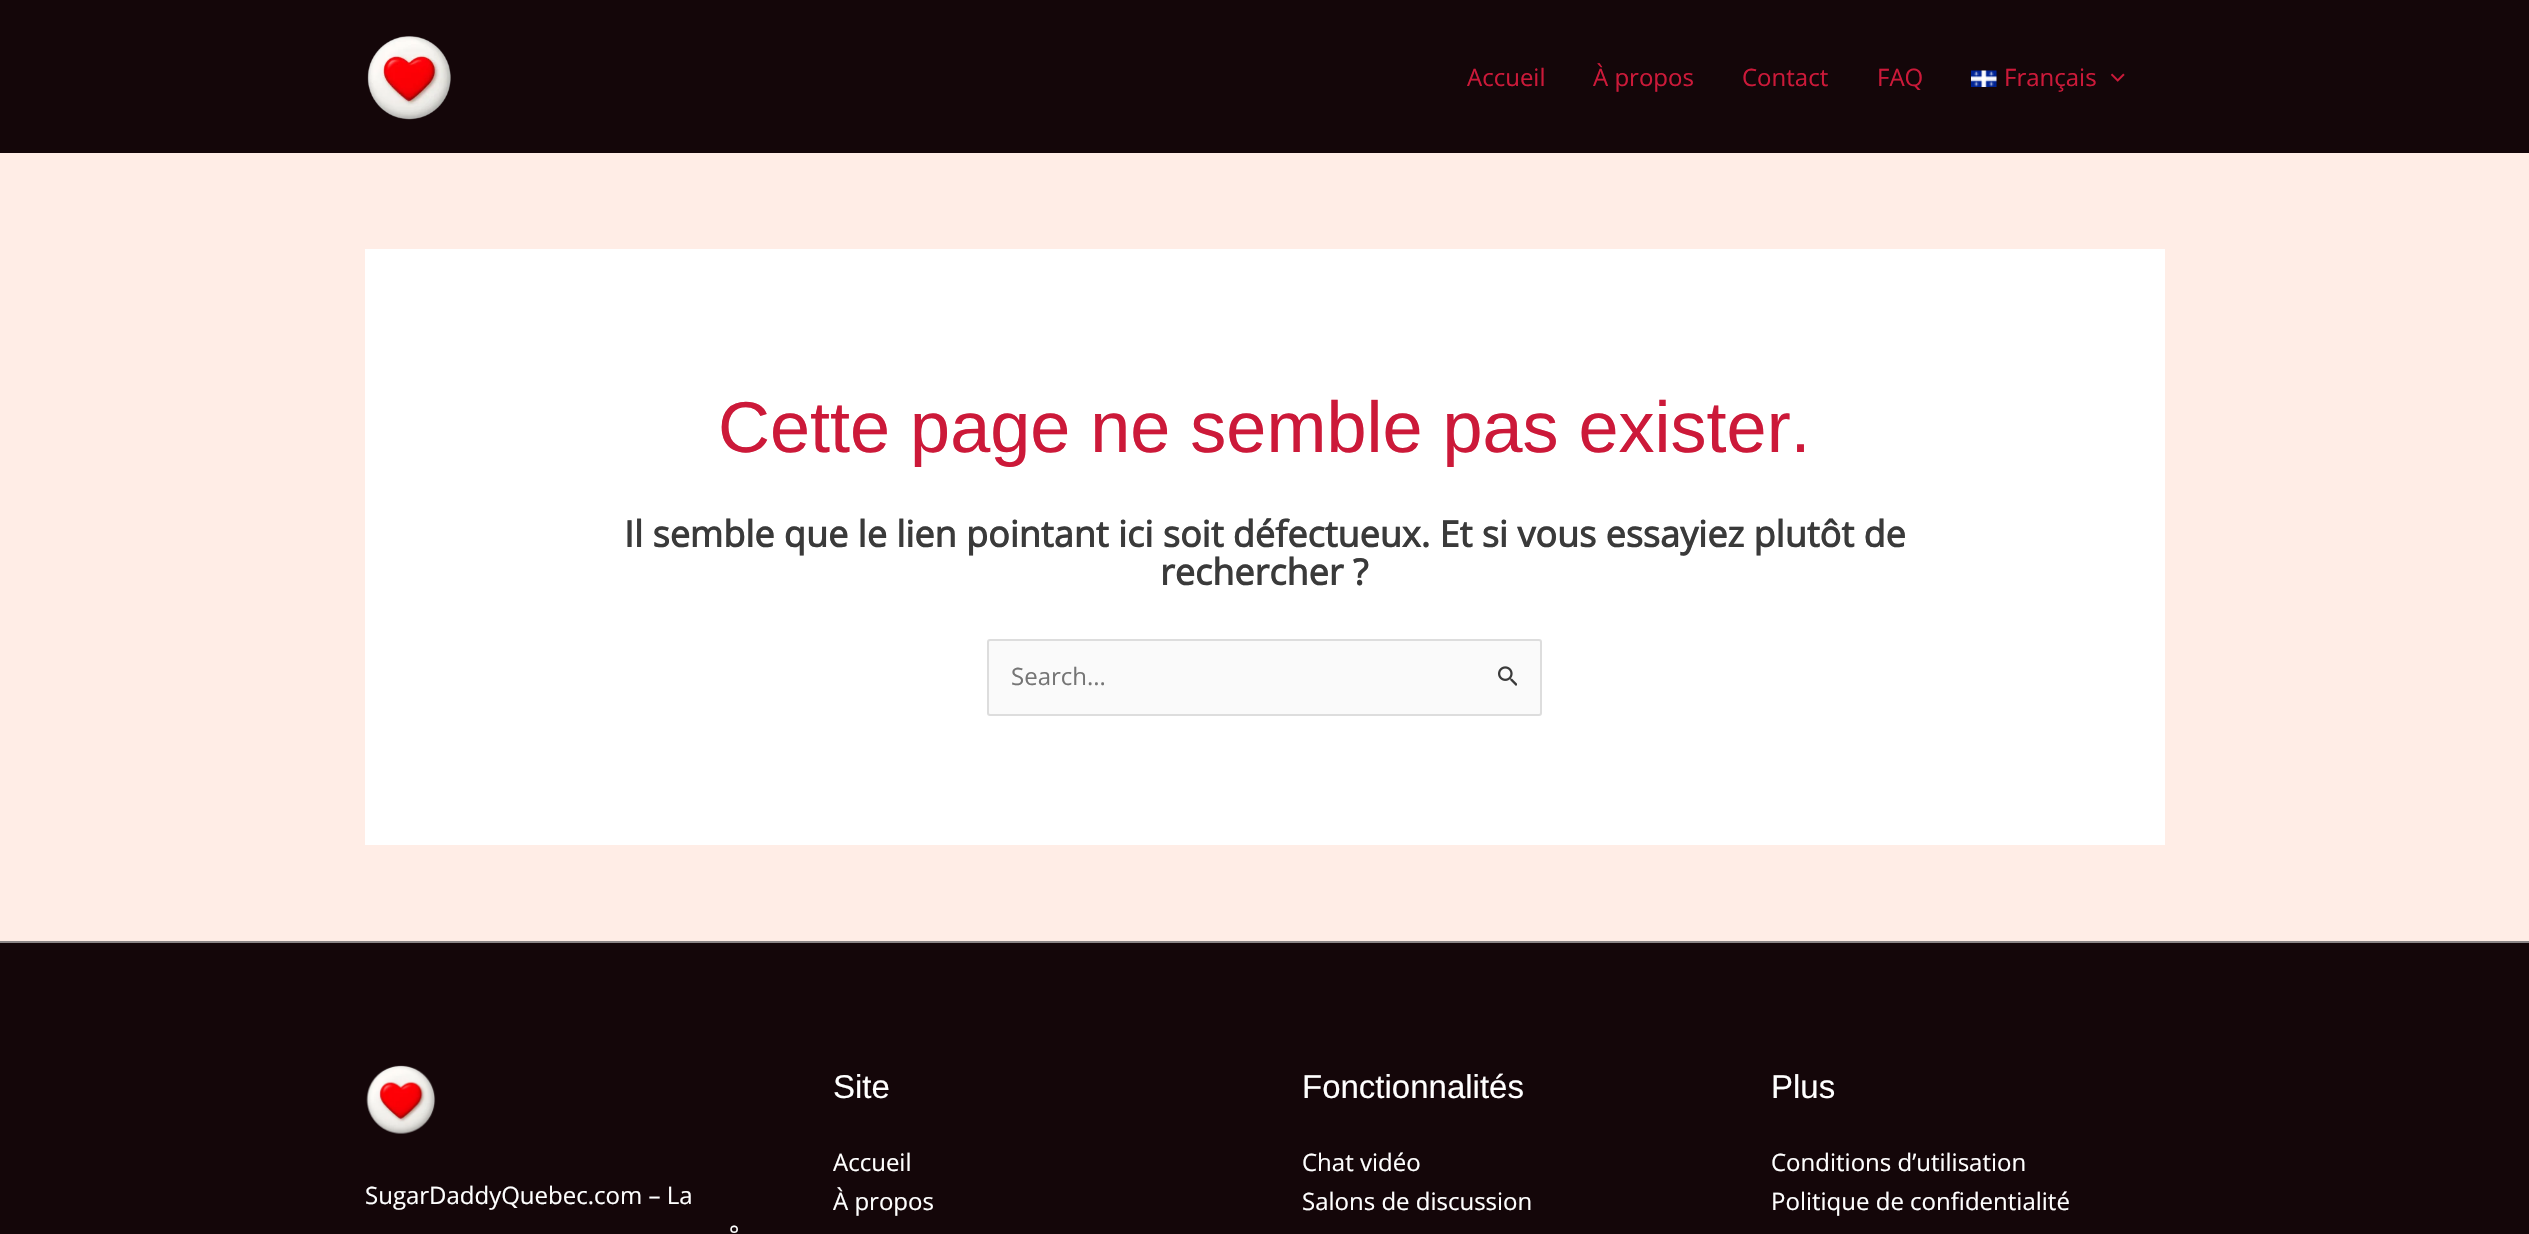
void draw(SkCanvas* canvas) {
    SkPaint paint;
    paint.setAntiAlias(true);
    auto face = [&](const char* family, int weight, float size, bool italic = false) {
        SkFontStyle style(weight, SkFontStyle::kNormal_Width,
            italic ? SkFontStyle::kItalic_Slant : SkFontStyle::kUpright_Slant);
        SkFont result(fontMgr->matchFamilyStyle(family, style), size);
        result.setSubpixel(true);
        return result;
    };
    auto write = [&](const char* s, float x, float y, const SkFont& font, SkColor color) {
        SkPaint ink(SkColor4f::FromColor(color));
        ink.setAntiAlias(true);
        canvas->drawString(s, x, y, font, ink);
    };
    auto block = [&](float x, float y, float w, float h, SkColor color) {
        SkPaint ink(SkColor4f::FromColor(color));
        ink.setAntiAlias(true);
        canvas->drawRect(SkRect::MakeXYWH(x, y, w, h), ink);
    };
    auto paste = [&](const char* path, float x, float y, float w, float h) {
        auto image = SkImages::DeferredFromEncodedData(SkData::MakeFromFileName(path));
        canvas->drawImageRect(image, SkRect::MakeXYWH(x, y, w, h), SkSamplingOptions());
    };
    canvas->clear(SkColorSetRGB(255, 237, 230));
    block(0, 0, 2529, 153, SkColorSetRGB(20, 6, 9));
    paste("pic1.png", 367, 36, 84, 84);
    auto kFont1 = face("Open Sans", 400, 24);
    write("Accueil", 1467, 86, kFont1, SkColorSetRGB(204, 25, 57));
    write("À propos", 1593, 86, kFont1, SkColorSetRGB(204, 25, 57));
    write("Contact", 1742, 86, kFont1, SkColorSetRGB(204, 25, 57));
    write("FAQ", 1877, 86, kFont1, SkColorSetRGB(204, 25, 57));
    paste("pic2.png", 1971, 70, 26, 17);
    write("Français", 2004, 86, kFont1, SkColorSetRGB(204, 25, 57));
    paste("pic3.png", 2111, 73, 14, 9);
    block(365, 249, 1800, 596, SK_ColorWHITE);
    auto kFont2 = face("Liberation Sans", 400, 72);
    write("Cette page ne semble pas exister.", 718, 452, kFont2, SkColorSetRGB(204, 25, 57));
    auto kFont3 = face("Open Sans", 700, 36);
    write("Il semble que le lien pointant ici soit défectueux. Et si vous essayiez plutôt de", 624, 547, kFont3, SkColorSetRGB(58, 58, 58));
    write("rechercher ?", 1160, 585, kFont3, SkColorSetRGB(58, 58, 58));
    paint.setColor(SkColorSetRGB(250, 250, 250));
    canvas->drawRoundRect(SkRect::MakeXYWH(988, 640, 553, 75), 2, 2, paint);
    paint.setStyle(SkPaint::kStroke_Style);
    paint.setStrokeWidth(2);
    paint.setColor(SkColorSetRGB(221, 221, 221));
    canvas->drawRoundRect(SkRect::MakeXYWH(988, 640, 553, 75), 2, 2, paint);
    write("Search...", 1011, 685, kFont1, SkColorSetRGB(117, 117, 117));
    paste("pic4.png", 1498, 666, 19, 20);
    block(0, 943, 2529, 291, SkColorSetRGB(20, 6, 9));
    block(0, 941, 2529, 2, SkColorSetRGB(140, 134, 135));
    paste("pic5.png", 366, 1065, 70, 69);
    write("SugarDaddyQuebec.com – La", 365, 1204, kFont1, SK_ColorWHITE);
    write("°", 729, 1243, kFont1, SK_ColorWHITE);
    auto kFont4 = face("Liberation Sans", 400, 33);
    write("Site", 833, 1098, kFont4, SK_ColorWHITE);
    write("Accueil", 833, 1171, kFont1, SK_ColorWHITE);
    write("À propos", 833, 1210, kFont1, SK_ColorWHITE);
    write("Fonctionnalités", 1302, 1098, kFont4, SK_ColorWHITE);
    write("Chat vidéo", 1302, 1171, kFont1, SK_ColorWHITE);
    write("Salons de discussion", 1302, 1210, kFont1, SK_ColorWHITE);
    write("Plus", 1771, 1098, kFont4, SK_ColorWHITE);
    write("Conditions d’utilisation", 1771, 1171, kFont1, SK_ColorWHITE);
    write("Politique de confidentialité", 1771, 1210, kFont1, SK_ColorWHITE);
}
